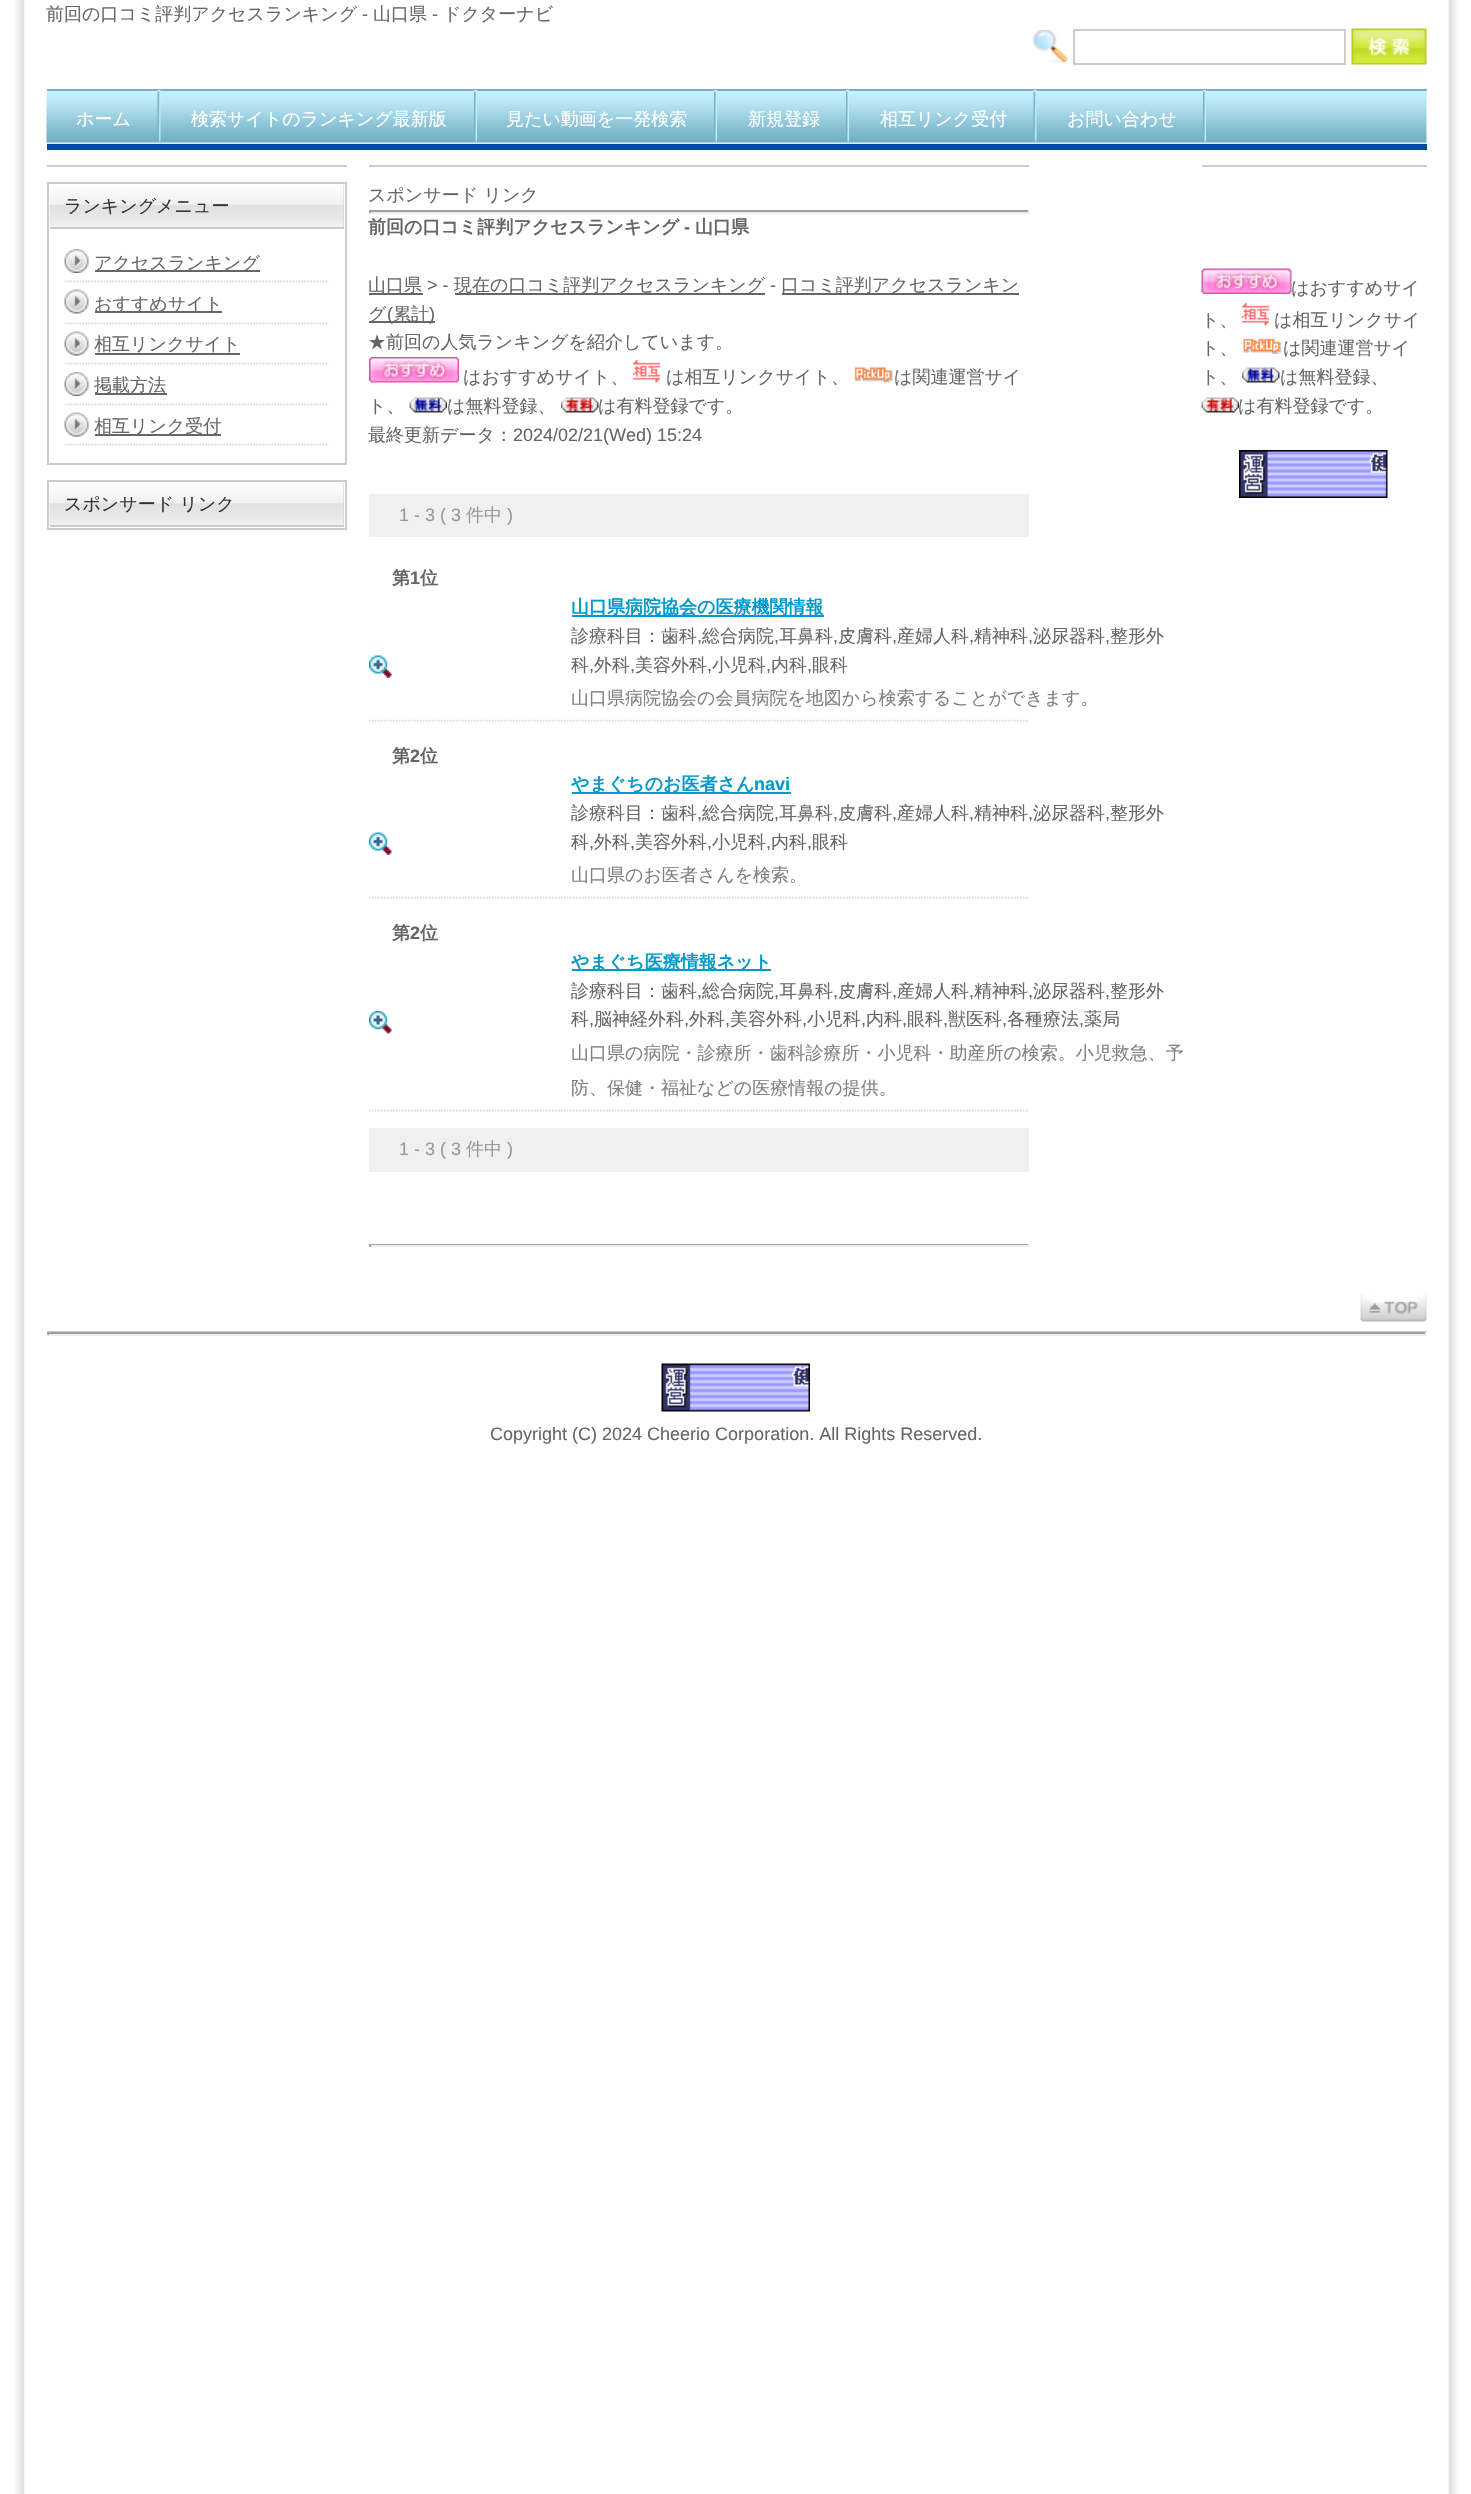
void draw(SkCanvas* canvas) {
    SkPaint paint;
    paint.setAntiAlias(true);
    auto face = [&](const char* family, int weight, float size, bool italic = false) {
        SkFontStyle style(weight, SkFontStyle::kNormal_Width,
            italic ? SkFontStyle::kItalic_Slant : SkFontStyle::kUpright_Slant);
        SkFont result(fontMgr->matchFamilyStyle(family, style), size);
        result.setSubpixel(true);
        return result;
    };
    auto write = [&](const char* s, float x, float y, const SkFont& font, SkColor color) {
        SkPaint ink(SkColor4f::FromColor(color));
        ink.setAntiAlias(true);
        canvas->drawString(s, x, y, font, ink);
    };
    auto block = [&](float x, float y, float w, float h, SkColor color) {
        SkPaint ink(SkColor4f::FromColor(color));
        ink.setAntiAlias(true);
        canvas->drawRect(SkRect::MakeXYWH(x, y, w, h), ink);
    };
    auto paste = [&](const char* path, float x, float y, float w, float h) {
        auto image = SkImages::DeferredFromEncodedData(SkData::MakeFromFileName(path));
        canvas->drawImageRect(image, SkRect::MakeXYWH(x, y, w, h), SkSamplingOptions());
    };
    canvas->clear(SK_ColorWHITE);
    paste("pic1.png", 14, 0, 1445, 2494);
    auto kFont1 = face("WenQuanYi Zen Hei", 500, 18);
    write("前回の口コミ評判アクセスランキング", 46, 20, kFont1, SkColorSetRGB(102, 102, 102));
    auto kFont2 = face("Liberation Sans", 400, 18);
    write("-", 362, 20, kFont2, SkColorSetRGB(102, 102, 102));
    write("山口県", 373, 20, kFont1, SkColorSetRGB(102, 102, 102));
    write("-", 432, 20, kFont2, SkColorSetRGB(102, 102, 102));
    write("ドクターナビ", 443, 20, kFont1, SkColorSetRGB(102, 102, 102));
    paste("pic2.png", 1033, 29, 35, 35);
    paint.setStyle(SkPaint::kStroke_Style);
    paint.setStrokeWidth(2);
    paint.setColor(SkColorSetRGB(204, 204, 204));
    canvas->drawRect(SkRect::MakeXYWH(1074, 30, 271, 34), paint);
    paste("pic3.png", 1351, 28, 76, 37);
    paste("pic4.png", 46, 90, 1381, 54);
    block(47, 89, 1380, 2, SkColorSetRGB(116, 176, 198));
    block(47, 144, 1380, 6, SkColorSetRGB(0, 76, 153));
    paste("pic5.png", 157, 90, 4, 52);
    write("ホーム", 76, 125, kFont1, SK_ColorWHITE);
    paste("pic6.png", 474, 90, 3, 52);
    write("検索サイトのランキング最新版", 191, 125, kFont1, SK_ColorWHITE);
    paste("pic6.png", 714, 90, 3, 52);
    write("見たい動画を一発検索", 506, 125, kFont1, SK_ColorWHITE);
    paste("pic7.png", 846, 90, 3, 52);
    write("新規登録", 748, 125, kFont1, SK_ColorWHITE);
    paste("pic5.png", 1033, 90, 4, 52);
    write("相互リンク受付", 880, 125, kFont1, SK_ColorWHITE);
    paste("pic6.png", 1203, 90, 3, 52);
    write("お問い合わせ", 1067, 125, kFont1, SK_ColorWHITE);
    block(47, 165, 300, 2, SkColorSetRGB(204, 204, 204));
    canvas->drawRect(SkRect::MakeXYWH(48, 183, 298, 281), paint);
    block(343, 185, 1, 42, SkColorSetRGB(204, 204, 204));
    paste("pic8.png", 49, 185, 295, 43);
    block(50, 227, 294, 2, SkColorSetRGB(204, 204, 204));
    write("ランキングメニュー", 64, 212, kFont1, SkColorSetRGB(51, 51, 51));
    paste("pic9.png", 64, 280, 265, 3);
    paste("pic10.png", 64, 249, 25, 24);
    block(95, 270, 165, 2, SkColorSetRGB(102, 102, 102));
    write("アクセスランキング", 94, 269, kFont1, SkColorSetRGB(102, 102, 102));
    paste("pic9.png", 64, 322, 265, 3);
    paste("pic11.png", 64, 289, 25, 25);
    block(95, 311, 127, 2, SkColorSetRGB(102, 102, 102));
    write("おすすめサイト", 94, 310, kFont1, SkColorSetRGB(102, 102, 102));
    paste("pic12.png", 64, 362, 265, 3);
    paste("pic11.png", 64, 331, 25, 25);
    write("相互リンクサイト", 94, 350, kFont1, SkColorSetRGB(102, 102, 102));
    block(95, 353, 145, 2, SkColorSetRGB(102, 102, 102));
    paste("pic9.png", 64, 403, 265, 3);
    paste("pic10.png", 64, 372, 25, 24);
    block(95, 393, 72, 2, SkColorSetRGB(102, 102, 102));
    write("掲載方法", 94, 391, kFont1, SkColorSetRGB(102, 102, 102));
    paste("pic12.png", 64, 443, 265, 3);
    paste("pic11.png", 64, 412, 25, 25);
    block(95, 434, 126, 2, SkColorSetRGB(102, 102, 102));
    write("相互リンク受付", 94, 432, kFont1, SkColorSetRGB(102, 102, 102));
    canvas->drawRect(SkRect::MakeXYWH(48, 481, 298, 48), paint);
    block(343, 483, 1, 42, SkColorSetRGB(204, 204, 204));
    paste("pic13.png", 49, 483, 295, 44);
    block(50, 525, 294, 2, SkColorSetRGB(204, 204, 204));
    write("スポンサード リンク", 64, 510, kFont1, SkColorSetRGB(51, 51, 51));
    block(369, 165, 660, 2, SkColorSetRGB(204, 204, 204));
    write("スポンサード リンク", 368, 201, kFont1, SkColorSetRGB(102, 102, 102));
    block(369, 210, 660, 2, SkColorSetRGB(159, 159, 159));
    block(1028, 210, 2, 3, SkColorSetRGB(238, 238, 238));
    block(369, 212, 660, 2, SkColorSetRGB(238, 238, 238));
    block(369, 210, 2, 3, SkColorSetRGB(159, 159, 159));
    auto kFont3 = face("WenQuanYi Zen Hei", 700, 18);
    write("前回の口コミ評判アクセスランキング", 368, 233, kFont3, SkColorSetRGB(102, 102, 102));
    auto kFont4 = face("Liberation Sans", 700, 18);
    write("-", 684, 233, kFont4, SkColorSetRGB(102, 102, 102));
    write("山口県", 695, 233, kFont3, SkColorSetRGB(102, 102, 102));
    block(369, 293, 54, 2, SkColorSetRGB(102, 102, 102));
    write("山口県", 368, 291, kFont1, SkColorSetRGB(102, 102, 102));
    write("> -", 427, 291, kFont2, SkColorSetRGB(102, 102, 102));
    block(455, 293, 310, 2, SkColorSetRGB(102, 102, 102));
    write("現在の口コミ評判アクセスランキング", 454, 291, kFont1, SkColorSetRGB(102, 102, 102));
    write("-", 770, 291, kFont2, SkColorSetRGB(102, 102, 102));
    block(782, 293, 237, 2, SkColorSetRGB(102, 102, 102));
    write("口コミ評判アクセスランキン", 781, 291, kFont1, SkColorSetRGB(102, 102, 102));
    block(369, 321, 66, 2, SkColorSetRGB(102, 102, 102));
    write("グ", 368, 320, kFont1, SkColorSetRGB(102, 102, 102));
    write("(", 387, 320, kFont2, SkColorSetRGB(102, 102, 102));
    write("累計", 393, 320, kFont1, SkColorSetRGB(102, 102, 102));
    write(")", 429, 320, kFont2, SkColorSetRGB(102, 102, 102));
    write("★前回の人気ランキングを紹介しています。", 368, 348, kFont1, SkColorSetRGB(102, 102, 102));
    paste("pic14.png", 369, 357, 90, 26);
    write("はおすすめサイト、", 463, 383, kFont1, SkColorSetRGB(102, 102, 102));
    paste("pic15.png", 633, 360, 27, 23);
    write("は相互リンクサイト、", 666, 383, kFont1, SkColorSetRGB(102, 102, 102));
    paste("pic16.png", 854, 367, 39, 16);
    write("は関連運営サイ", 894, 383, kFont1, SkColorSetRGB(102, 102, 102));
    write("ト、", 368, 412, kFont1, SkColorSetRGB(102, 102, 102));
    paste("pic17.png", 409, 397, 38, 16);
    write("は無料登録、", 447, 412, kFont1, SkColorSetRGB(102, 102, 102));
    paste("pic18.png", 561, 397, 38, 16);
    write("は有料登録です。", 598, 412, kFont1, SkColorSetRGB(102, 102, 102));
    write("最終更新データ：", 368, 441, kFont1, SkColorSetRGB(102, 102, 102));
    write("2024/02/21(Wed) 15:24", 513, 441, kFont2, SkColorSetRGB(102, 102, 102));
    block(369, 494, 660, 43, SkColorSetRGB(240, 240, 240));
    write("1 - 3 ( 3", 399, 521, kFont2, SkColorSetRGB(153, 153, 153));
    write("件中", 466, 521, kFont1, SkColorSetRGB(153, 153, 153));
    write(")", 507, 521, kFont2, SkColorSetRGB(153, 153, 153));
    paste("pic19.png", 369, 719, 660, 3);
    write("第", 392, 584, kFont3, SkColorSetRGB(102, 102, 102));
    write("1", 410, 584, kFont4, SkColorSetRGB(102, 102, 102));
    write("位", 420, 584, kFont3, SkColorSetRGB(102, 102, 102));
    paste("pic20.png", 369, 655, 23, 23);
    block(572, 615, 252, 2, SkColorSetRGB(0, 153, 204));
    write("山口県病院協会の医療機関情報", 571, 613, kFont3, SkColorSetRGB(0, 153, 204));
    write("診療科目：歯科", 571, 642, kFont1, SkColorSetRGB(102, 102, 102));
    write(",", 697, 642, kFont2, SkColorSetRGB(102, 102, 102));
    write("総合病院", 702, 642, kFont1, SkColorSetRGB(102, 102, 102));
    write(",", 774, 642, kFont2, SkColorSetRGB(102, 102, 102));
    write("耳鼻科", 779, 642, kFont1, SkColorSetRGB(102, 102, 102));
    write(",", 833, 642, kFont2, SkColorSetRGB(102, 102, 102));
    write("皮膚科", 838, 642, kFont1, SkColorSetRGB(102, 102, 102));
    write(",", 892, 642, kFont2, SkColorSetRGB(102, 102, 102));
    write("産婦人科", 897, 642, kFont1, SkColorSetRGB(102, 102, 102));
    write(",", 969, 642, kFont2, SkColorSetRGB(102, 102, 102));
    write("精神科", 974, 642, kFont1, SkColorSetRGB(102, 102, 102));
    write(",", 1028, 642, kFont2, SkColorSetRGB(102, 102, 102));
    write("泌尿器科", 1033, 642, kFont1, SkColorSetRGB(102, 102, 102));
    write(",", 1105, 642, kFont2, SkColorSetRGB(102, 102, 102));
    write("整形外", 1110, 642, kFont1, SkColorSetRGB(102, 102, 102));
    write("科", 571, 671, kFont1, SkColorSetRGB(102, 102, 102));
    write(",", 589, 671, kFont2, SkColorSetRGB(102, 102, 102));
    write("外科", 594, 671, kFont1, SkColorSetRGB(102, 102, 102));
    write(",", 630, 671, kFont2, SkColorSetRGB(102, 102, 102));
    write("美容外科", 635, 671, kFont1, SkColorSetRGB(102, 102, 102));
    write(",", 707, 671, kFont2, SkColorSetRGB(102, 102, 102));
    write("小児科", 712, 671, kFont1, SkColorSetRGB(102, 102, 102));
    write(",", 766, 671, kFont2, SkColorSetRGB(102, 102, 102));
    write("内科", 771, 671, kFont1, SkColorSetRGB(102, 102, 102));
    write(",", 807, 671, kFont2, SkColorSetRGB(102, 102, 102));
    write("眼科", 812, 671, kFont1, SkColorSetRGB(102, 102, 102));
    write("山口県病院協会の会員病院を地図から検索することができます。", 571, 704, kFont1, SkColorSetRGB(128, 128, 128));
    paste("pic19.png", 369, 896, 660, 3);
    write("第", 392, 762, kFont3, SkColorSetRGB(102, 102, 102));
    write("2", 410, 762, kFont4, SkColorSetRGB(102, 102, 102));
    write("位", 420, 762, kFont3, SkColorSetRGB(102, 102, 102));
    paste("pic20.png", 369, 832, 23, 23);
    block(572, 792, 219, 2, SkColorSetRGB(0, 153, 204));
    write("やまぐちのお医者さん", 571, 790, kFont3, SkColorSetRGB(0, 153, 204));
    write("navi", 754, 790, kFont4, SkColorSetRGB(0, 153, 204));
    write("診療科目：歯科", 571, 819, kFont1, SkColorSetRGB(102, 102, 102));
    write(",", 697, 819, kFont2, SkColorSetRGB(102, 102, 102));
    write("総合病院", 702, 819, kFont1, SkColorSetRGB(102, 102, 102));
    write(",", 774, 819, kFont2, SkColorSetRGB(102, 102, 102));
    write("耳鼻科", 779, 819, kFont1, SkColorSetRGB(102, 102, 102));
    write(",", 833, 819, kFont2, SkColorSetRGB(102, 102, 102));
    write("皮膚科", 838, 819, kFont1, SkColorSetRGB(102, 102, 102));
    write(",", 892, 819, kFont2, SkColorSetRGB(102, 102, 102));
    write("産婦人科", 897, 819, kFont1, SkColorSetRGB(102, 102, 102));
    write(",", 969, 819, kFont2, SkColorSetRGB(102, 102, 102));
    write("精神科", 974, 819, kFont1, SkColorSetRGB(102, 102, 102));
    write(",", 1028, 819, kFont2, SkColorSetRGB(102, 102, 102));
    write("泌尿器科", 1033, 819, kFont1, SkColorSetRGB(102, 102, 102));
    write(",", 1105, 819, kFont2, SkColorSetRGB(102, 102, 102));
    write("整形外", 1110, 819, kFont1, SkColorSetRGB(102, 102, 102));
    write("科", 571, 848, kFont1, SkColorSetRGB(102, 102, 102));
    write(",", 589, 848, kFont2, SkColorSetRGB(102, 102, 102));
    write("外科", 594, 848, kFont1, SkColorSetRGB(102, 102, 102));
    write(",", 630, 848, kFont2, SkColorSetRGB(102, 102, 102));
    write("美容外科", 635, 848, kFont1, SkColorSetRGB(102, 102, 102));
    write(",", 707, 848, kFont2, SkColorSetRGB(102, 102, 102));
    write("小児科", 712, 848, kFont1, SkColorSetRGB(102, 102, 102));
    write(",", 766, 848, kFont2, SkColorSetRGB(102, 102, 102));
    write("内科", 771, 848, kFont1, SkColorSetRGB(102, 102, 102));
    write(",", 807, 848, kFont2, SkColorSetRGB(102, 102, 102));
    write("眼科", 812, 848, kFont1, SkColorSetRGB(102, 102, 102));
    write("山口県のお医者さんを検索。", 571, 881, kFont1, SkColorSetRGB(128, 128, 128));
    paste("pic19.png", 369, 1109, 660, 3);
    write("第", 392, 939, kFont3, SkColorSetRGB(102, 102, 102));
    write("2", 410, 939, kFont4, SkColorSetRGB(102, 102, 102));
    write("位", 420, 939, kFont3, SkColorSetRGB(102, 102, 102));
    paste("pic21.png", 369, 1011, 23, 23);
    block(572, 969, 199, 2, SkColorSetRGB(0, 153, 204));
    write("やまぐち医療情報ネット", 571, 968, kFont3, SkColorSetRGB(0, 153, 204));
    write("診療科目：歯科", 571, 997, kFont1, SkColorSetRGB(102, 102, 102));
    write(",", 697, 997, kFont2, SkColorSetRGB(102, 102, 102));
    write("総合病院", 702, 997, kFont1, SkColorSetRGB(102, 102, 102));
    write(",", 774, 997, kFont2, SkColorSetRGB(102, 102, 102));
    write("耳鼻科", 779, 997, kFont1, SkColorSetRGB(102, 102, 102));
    write(",", 833, 997, kFont2, SkColorSetRGB(102, 102, 102));
    write("皮膚科", 838, 997, kFont1, SkColorSetRGB(102, 102, 102));
    write(",", 892, 997, kFont2, SkColorSetRGB(102, 102, 102));
    write("産婦人科", 897, 997, kFont1, SkColorSetRGB(102, 102, 102));
    write(",", 969, 997, kFont2, SkColorSetRGB(102, 102, 102));
    write("精神科", 974, 997, kFont1, SkColorSetRGB(102, 102, 102));
    write(",", 1028, 997, kFont2, SkColorSetRGB(102, 102, 102));
    write("泌尿器科", 1033, 997, kFont1, SkColorSetRGB(102, 102, 102));
    write(",", 1105, 997, kFont2, SkColorSetRGB(102, 102, 102));
    write("整形外", 1110, 997, kFont1, SkColorSetRGB(102, 102, 102));
    write("科", 571, 1025, kFont1, SkColorSetRGB(102, 102, 102));
    write(",", 589, 1025, kFont2, SkColorSetRGB(102, 102, 102));
    write("脳神経外科", 594, 1025, kFont1, SkColorSetRGB(102, 102, 102));
    write(",", 684, 1025, kFont2, SkColorSetRGB(102, 102, 102));
    write("外科", 689, 1025, kFont1, SkColorSetRGB(102, 102, 102));
    write(",", 725, 1025, kFont2, SkColorSetRGB(102, 102, 102));
    write("美容外科", 730, 1025, kFont1, SkColorSetRGB(102, 102, 102));
    write(",", 802, 1025, kFont2, SkColorSetRGB(102, 102, 102));
    write("小児科", 807, 1025, kFont1, SkColorSetRGB(102, 102, 102));
    write(",", 861, 1025, kFont2, SkColorSetRGB(102, 102, 102));
    write("内科", 866, 1025, kFont1, SkColorSetRGB(102, 102, 102));
    write(",", 902, 1025, kFont2, SkColorSetRGB(102, 102, 102));
    write("眼科", 907, 1025, kFont1, SkColorSetRGB(102, 102, 102));
    write(",", 943, 1025, kFont2, SkColorSetRGB(102, 102, 102));
    write("獣医科", 948, 1025, kFont1, SkColorSetRGB(102, 102, 102));
    write(",", 1002, 1025, kFont2, SkColorSetRGB(102, 102, 102));
    write("各種療法", 1007, 1025, kFont1, SkColorSetRGB(102, 102, 102));
    write(",", 1079, 1025, kFont2, SkColorSetRGB(102, 102, 102));
    write("薬局", 1084, 1025, kFont1, SkColorSetRGB(102, 102, 102));
    write("山口県の病院・診療所・歯科診療所・小児科・助産所の検索。小児救急、予", 571, 1059, kFont1, SkColorSetRGB(128, 128, 128));
    write("防、保健・福祉などの医療情報の提供。", 571, 1094, kFont1, SkColorSetRGB(128, 128, 128));
    block(369, 1128, 660, 44, SkColorSetRGB(240, 240, 240));
    write("1 - 3 ( 3", 399, 1155, kFont2, SkColorSetRGB(153, 153, 153));
    write("件中", 466, 1155, kFont1, SkColorSetRGB(153, 153, 153));
    write(")", 507, 1155, kFont2, SkColorSetRGB(153, 153, 153));
    block(369, 1244, 660, 1, SkColorSetRGB(159, 159, 159));
    block(1028, 1244, 2, 3, SkColorSetRGB(238, 238, 238));
    block(369, 1245, 660, 2, SkColorSetRGB(238, 238, 238));
    block(369, 1244, 2, 3, SkColorSetRGB(159, 159, 159));
    block(1202, 165, 225, 2, SkColorSetRGB(204, 204, 204));
    paste("pic22.png", 1201, 268, 91, 26);
    write("はおすすめサイ", 1291, 294, kFont1, SkColorSetRGB(102, 102, 102));
    write("ト、", 1201, 326, kFont1, SkColorSetRGB(102, 102, 102));
    paste("pic23.png", 1242, 303, 27, 23);
    write("は相互リンクサイ", 1274, 326, kFont1, SkColorSetRGB(102, 102, 102));
    write("ト、", 1201, 354, kFont1, SkColorSetRGB(102, 102, 102));
    paste("pic24.png", 1243, 338, 39, 16);
    write("は関連運営サイ", 1283, 354, kFont1, SkColorSetRGB(102, 102, 102));
    write("ト、", 1201, 383, kFont1, SkColorSetRGB(102, 102, 102));
    paste("pic25.png", 1242, 367, 38, 16);
    write("は無料登録、", 1280, 383, kFont1, SkColorSetRGB(102, 102, 102));
    paste("pic26.png", 1201, 397, 38, 16);
    write("は有料登録です。", 1238, 412, kFont1, SkColorSetRGB(102, 102, 102));
    paste("pic27.png", 1239, 450, 149, 48);
    block(47, 1331, 1380, 1, SkColorSetRGB(204, 204, 204));
    paste("pic28.png", 1360, 1293, 67, 29);
    block(47, 1332, 1380, 2, SkColorSetRGB(159, 159, 159));
    block(1425, 1332, 2, 3, SkColorSetRGB(238, 238, 238));
    block(47, 1334, 1380, 2, SkColorSetRGB(238, 238, 238));
    block(47, 1332, 2, 3, SkColorSetRGB(159, 159, 159));
    paste("pic29.png", 661, 1363, 149, 49);
    write("Copyright (C) 2024 Cheerio Corporation. All Rights Reserved.", 490, 1440, kFont2, SkColorSetRGB(102, 102, 102));
}
